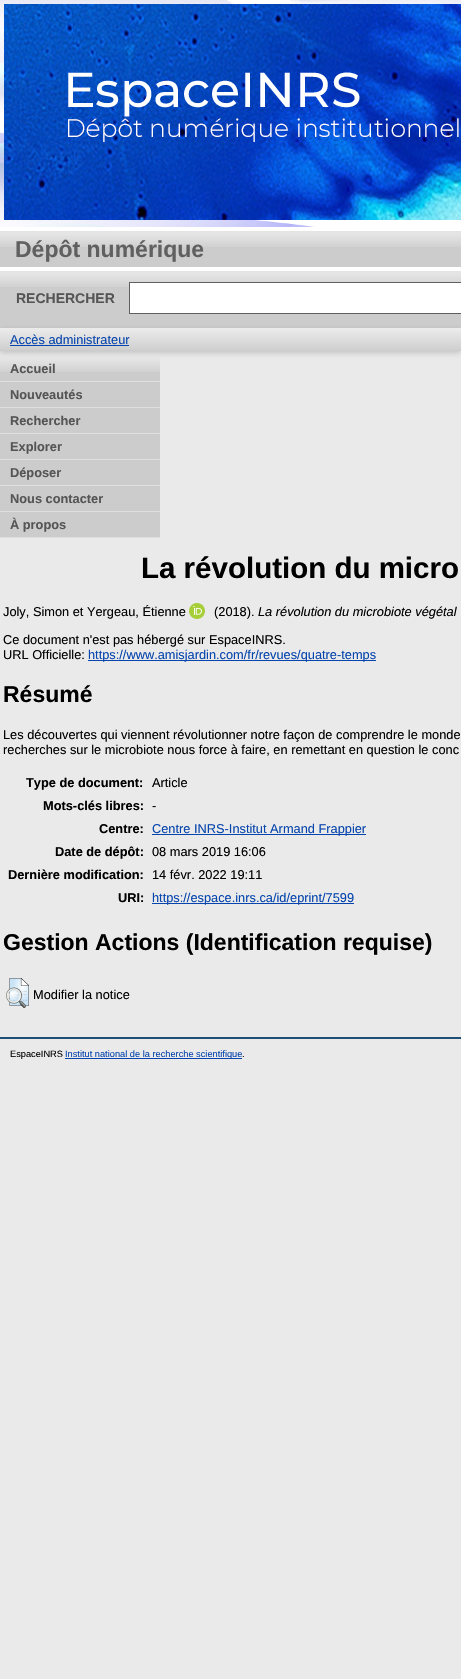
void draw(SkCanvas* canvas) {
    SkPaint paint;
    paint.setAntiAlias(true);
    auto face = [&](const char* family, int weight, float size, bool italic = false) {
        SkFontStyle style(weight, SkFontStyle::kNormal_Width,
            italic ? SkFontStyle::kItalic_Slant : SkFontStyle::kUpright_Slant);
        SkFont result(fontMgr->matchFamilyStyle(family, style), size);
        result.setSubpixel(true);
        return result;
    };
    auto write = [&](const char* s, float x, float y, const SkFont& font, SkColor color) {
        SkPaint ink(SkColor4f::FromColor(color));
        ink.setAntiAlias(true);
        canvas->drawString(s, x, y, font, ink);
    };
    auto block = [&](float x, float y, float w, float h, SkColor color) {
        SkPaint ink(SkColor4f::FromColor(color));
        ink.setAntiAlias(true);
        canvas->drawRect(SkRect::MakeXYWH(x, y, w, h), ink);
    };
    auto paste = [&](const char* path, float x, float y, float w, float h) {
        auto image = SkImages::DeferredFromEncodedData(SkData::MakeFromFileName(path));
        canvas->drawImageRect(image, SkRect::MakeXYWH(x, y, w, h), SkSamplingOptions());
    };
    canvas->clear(SkColorSetRGB(234, 234, 234));
    block(0, 0, 461, 231, SK_ColorWHITE);
    paste("pic1.png", 0, 0, 461, 227);
    paste("pic2.png", 4, 4, 457, 216);
    block(0, 247, 461, 20, SkColorSetRGB(204, 204, 204));
    paste("pic3.png", 0, 231, 461, 16);
    auto kFont1 = face("Liberation Sans", 700, 23);
    write("Dépôt numérique", 15, 257, kFont1, SkColorSetRGB(96, 96, 96));
    block(0, 287, 461, 41, SkColorSetRGB(204, 204, 204));
    paste("pic3.png", 0, 271, 461, 16);
    block(0, 267, 461, 4, SK_ColorWHITE);
    auto kFont2 = face("Liberation Sans", 700, 14);
    write("RECHERCHER", 16, 303, kFont2, SkColorSetRGB(85, 85, 85));
    paint.setColor(SK_ColorWHITE);
    canvas->drawRect(SkRect::MakeXYWH(129.5f, 282.5f, 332, 31), paint);
    paint.setStyle(SkPaint::kStroke_Style);
    paint.setStrokeWidth(1);
    paint.setColor(SkColorSetRGB(96, 96, 96));
    canvas->drawRect(SkRect::MakeXYWH(129.5f, 282.5f, 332, 31), paint);
    paint.setStyle(SkPaint::kFill_Style);
    paint.setColor(SkColorSetARGB(77, 100, 100, 100));
    paint.setMaskFilter(SkMaskFilter::MakeBlur(kNormal_SkBlurStyle, 3));
    canvas->drawRect(SkRect::MakeXYWH(0, 330, 461, 23), paint);
    paint.setMaskFilter(nullptr);
    block(0, 328, 461, 23, SkColorSetRGB(204, 204, 204));
    paste("pic4.png", 0, 328, 461, 22);
    auto kFont3 = face("Liberation Sans", 400, 12.8f);
    write("Accès administrateur", 10, 344, kFont3, SkColorSetRGB(6, 69, 173));
    block(10, 345, 119, 1, SkColorSetRGB(6, 69, 173));
    block(0, 372, 160, 165, SkColorSetRGB(204, 204, 204));
    paste("pic5.png", 0, 356, 160, 16);
    block(0, 381, 160, 1, SkColorSetRGB(223, 223, 223));
    auto kFont4 = face("Liberation Sans", 700, 12.8f);
    write("Accueil", 10, 373, kFont4, SkColorSetRGB(85, 85, 85));
    block(0, 407, 160, 1, SkColorSetRGB(223, 223, 223));
    write("Nouveautés", 10, 399, kFont4, SkColorSetRGB(85, 85, 85));
    block(0, 433, 160, 1, SkColorSetRGB(223, 223, 223));
    write("Rechercher", 10, 425, kFont4, SkColorSetRGB(85, 85, 85));
    block(0, 459, 160, 1, SkColorSetRGB(223, 223, 223));
    write("Explorer", 10, 451, kFont4, SkColorSetRGB(85, 85, 85));
    block(0, 485, 160, 1, SkColorSetRGB(223, 223, 223));
    write("Déposer", 10, 477, kFont4, SkColorSetRGB(85, 85, 85));
    block(0, 511, 160, 1, SkColorSetRGB(223, 223, 223));
    write("Nous contacter", 10, 503, kFont4, SkColorSetRGB(85, 85, 85));
    block(0, 537, 160, 1, SkColorSetRGB(223, 223, 223));
    write("À propos", 10, 529, kFont4, SkColorSetRGB(85, 85, 85));
    auto kFont5 = face("Liberation Sans", 700, 29.5f);
    write("La révolution du micro", 141, 578, kFont5, SK_ColorBLACK);
    write("Joly, Simon et Yergeau, Étienne", 3, 616, kFont3, SK_ColorBLACK);
    paste("pic6.png", 189, 603, 16, 16);
    write("(2018).", 214, 616, kFont3, SK_ColorBLACK);
    auto kFont6 = face("Liberation Sans", 400, 12.8f, true);
    write("La révolution du microbiote végétal", 258, 616, kFont6, SK_ColorBLACK);
    write("Ce document n'est pas hébergé sur EspaceINRS.", 3, 644, kFont3, SK_ColorBLACK);
    write("URL Officielle:", 3, 659, kFont3, SK_ColorBLACK);
    block(88, 660, 288, 1, SkColorSetRGB(6, 69, 173));
    write("https://www.amisjardin.com/fr/revues/quatre-temps", 88, 659, kFont3, SkColorSetRGB(6, 69, 173));
    write("Résumé", 3, 702, kFont1, SK_ColorBLACK);
    write("Les découvertes qui viennent révolutionner notre façon de comprendre le monde", 3, 739, kFont3, SK_ColorBLACK);
    write("recherches sur le microbiote nous force à faire, en remettant en question le conc", 3, 754, kFont3, SK_ColorBLACK);
    write("Type de document:", 26, 787, kFont4, SK_ColorBLACK);
    write("Article", 152, 787, kFont3, SK_ColorBLACK);
    write("Mots-clés libres:", 43, 810, kFont4, SK_ColorBLACK);
    write("-", 152, 810, kFont3, SK_ColorBLACK);
    write("Centre:", 99, 833, kFont4, SK_ColorBLACK);
    block(152, 834, 214, 1, SkColorSetRGB(6, 69, 173));
    write("Centre INRS-Institut Armand Frappier", 152, 833, kFont3, SkColorSetRGB(6, 69, 173));
    write("Date de dépôt:", 55, 856, kFont4, SK_ColorBLACK);
    write("08 mars 2019 16:06", 152, 856, kFont3, SK_ColorBLACK);
    write("Dernière modification:", 8, 879, kFont4, SK_ColorBLACK);
    write("14 févr. 2022 19:11", 152, 879, kFont3, SK_ColorBLACK);
    write("URI:", 118, 902, kFont4, SK_ColorBLACK);
    block(152, 903, 202, 1, SkColorSetRGB(6, 69, 173));
    write("https://espace.inrs.ca/id/eprint/7599", 152, 902, kFont3, SkColorSetRGB(6, 69, 173));
    write("Gestion Actions (Identification requise)", 3, 950, kFont1, SK_ColorBLACK);
    paste("pic7.png", 6, 978, 23, 30);
    write("Modifier la notice", 33, 999, kFont3, SK_ColorBLACK);
    block(0, 1037, 461, 2, SkColorSetRGB(32, 79, 118));
    auto kFont7 = face("Liberation Sans", 400, 9.25f);
    write("EspaceINRS", 10, 1057, kFont7, SK_ColorBLACK);
    block(65, 1058, 177, 1, SkColorSetRGB(6, 69, 173));
    write("Institut national de la recherche scientifique", 65, 1057, kFont7, SkColorSetRGB(6, 69, 173));
    write(".", 242, 1057, kFont7, SK_ColorBLACK);
}
